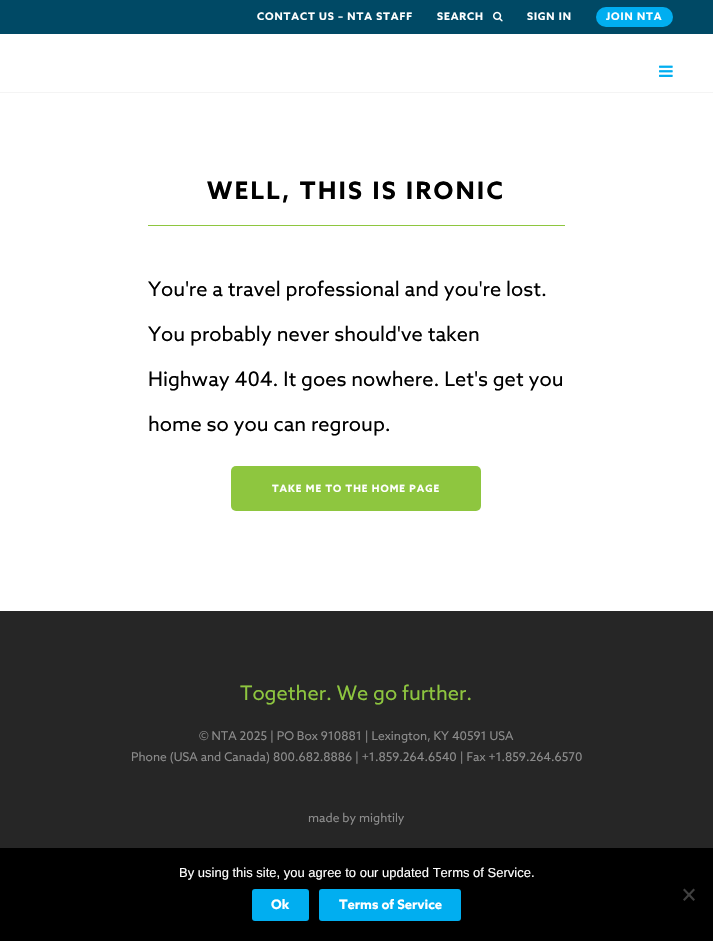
void draw(SkCanvas* canvas) {
    SkPaint paint;
    paint.setAntiAlias(true);
    auto face = [&](const char* family, int weight, float size, bool italic = false) {
        SkFontStyle style(weight, SkFontStyle::kNormal_Width,
            italic ? SkFontStyle::kItalic_Slant : SkFontStyle::kUpright_Slant);
        SkFont result(fontMgr->matchFamilyStyle(family, style), size);
        result.setSubpixel(true);
        return result;
    };
    auto write = [&](const char* s, float x, float y, const SkFont& font, SkColor color) {
        SkPaint ink(SkColor4f::FromColor(color));
        ink.setAntiAlias(true);
        canvas->drawString(s, x, y, font, ink);
    };
    auto writeSpaced = [&](const char* s, float x, float y, const SkFont& font, const SkPaint& ink, float letter, float word) {
        std::vector<SkGlyphID> glyphs(font.countText(s, strlen(s), SkTextEncoding::kUTF8));
        std::vector<float> xs(glyphs.size());
        font.textToGlyphs(s, strlen(s), SkTextEncoding::kUTF8, glyphs);
        font.getXPos(glyphs, xs, x);
        float extra = 0;
        for (size_t i = 0; i < glyphs.size(); i++) {
            xs[i] += extra;
            extra += letter + word * (glyphs[i] == font.unicharToGlyph(' '));
        }
        canvas->drawTextBlob(SkTextBlob::MakeFromPosHGlyphs(glyphs, xs, y, font), 0, 0, ink);
    };
    auto block = [&](float x, float y, float w, float h, SkColor color) {
        SkPaint ink(SkColor4f::FromColor(color));
        ink.setAntiAlias(true);
        canvas->drawRect(SkRect::MakeXYWH(x, y, w, h), ink);
    };
    auto card = [&](float x, float y, float w, float h, float radius, SkColor color) {
        SkPaint ink(SkColor4f::FromColor(color));
        ink.setAntiAlias(true);
        canvas->drawRoundRect(SkRect::MakeXYWH(x, y, w, h), radius, radius, ink);
    };
    auto paste = [&](const char* path, float x, float y, float w, float h) {
        auto image = SkImages::DeferredFromEncodedData(SkData::MakeFromFileName(path));
        canvas->drawImageRect(image, SkRect::MakeXYWH(x, y, w, h), SkSamplingOptions());
    };
    canvas->clear(SK_ColorWHITE);
    block(0, 0, 713, 34, SkColorSetRGB(0, 73, 101));
    auto kFont1 = face("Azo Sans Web", 700, 10.4f);
    paint.setColor(SK_ColorWHITE);
    writeSpaced("CONTACT US – NTA STAFF", 257, 20, kFont1, paint, 0.9f, 0);
    writeSpaced("SEARCH", 437, 20, kFont1, paint, 0.9f, 0);
    paste("pic1.png", 493, 11, 10, 11);
    writeSpaced("SIGN IN", 527, 20, kFont1, paint, 0.9f, 0);
    card(596, 7, 77, 20, 10, SkColorSetRGB(1, 174, 240));
    writeSpaced("JOIN NTA", 606, 20, kFont1, paint, 0.9f, 0);
    block(0, 92, 713, 1, SkColorSetRGB(244, 244, 244));
    paste("pic2.png", 659, 65, 14, 12);
    block(148, 225, 417, 1, SkColorSetRGB(142, 198, 63));
    auto kFont2 = face("Azo Sans Web", 700, 24);
    paint.setColor(SK_ColorBLACK);
    writeSpaced("WELL, THIS IS IRONIC", 207, 199, kFont2, paint, 2.4f, 0);
    auto kFont3 = face("Azo Sans Web", 400, 20);
    write("You're a travel professional and you're lost.", 148, 296, kFont3, SK_ColorBLACK);
    write("You probably never should've taken", 148, 341, kFont3, SK_ColorBLACK);
    write("Highway 404. It goes nowhere. Let's get you", 148, 386, kFont3, SK_ColorBLACK);
    write("home so you can regroup.", 148, 431, kFont3, SK_ColorBLACK);
    card(231, 466, 250, 45, 5, SkColorSetRGB(142, 198, 63));
    auto kFont4 = face("Azo Sans Web", 700, 10);
    paint.setColor(SK_ColorWHITE);
    writeSpaced("TAKE ME TO THE HOME PAGE", 272, 492, kFont4, paint, 1, 0);
    block(0, 611, 713, 237, SkColorSetRGB(38, 38, 38));
    write("Together. We go further.", 240, 700, kFont3, SkColorSetRGB(142, 198, 63));
    auto kFont5 = face("Azo Sans Web", 400, 12);
    write("© NTA 2025 | PO Box 910881 | Lexington, KY 40591 USA", 199, 740, kFont5, SkColorSetRGB(139, 139, 139));
    write("Phone (USA and Canada) 800.682.8886 | +1.859.264.6540 | Fax +1.859.264.6570", 131, 761, kFont5, SkColorSetRGB(139, 139, 139));
    write("made by mightily", 308, 822, kFont5, SkColorSetRGB(139, 139, 139));
    block(0, 848, 713, 93, SK_ColorBLACK);
    auto kFont6 = face("Liberation Sans", 400, 13);
    write("By using this site, you agree to our updated Terms of Service.", 179, 877, kFont6, SK_ColorWHITE);
    paint.setColor(SkColorSetRGB(64, 64, 64));
    canvas->drawPath(SkPathBuilder().moveTo(693.5f, 888.5f).lineTo(695, 890).lineTo(684.5f, 901).lineTo(683, 899.5f).close().detach(), paint);
    canvas->drawPath(SkPathBuilder().moveTo(683, 890).lineTo(684.5f, 888.5f).lineTo(695, 899.5f).lineTo(693.5f, 901).close().detach(), paint);
    card(252, 889, 57, 32, 3, SkColorSetRGB(1, 174, 240));
    auto kFont7 = face("Azo Sans Web", 700, 13);
    write("Ok", 271, 909, kFont7, SK_ColorWHITE);
    card(319, 889, 142, 32, 3, SkColorSetRGB(1, 174, 240));
    write("Terms of Service", 339, 909, kFont7, SK_ColorWHITE);
}
